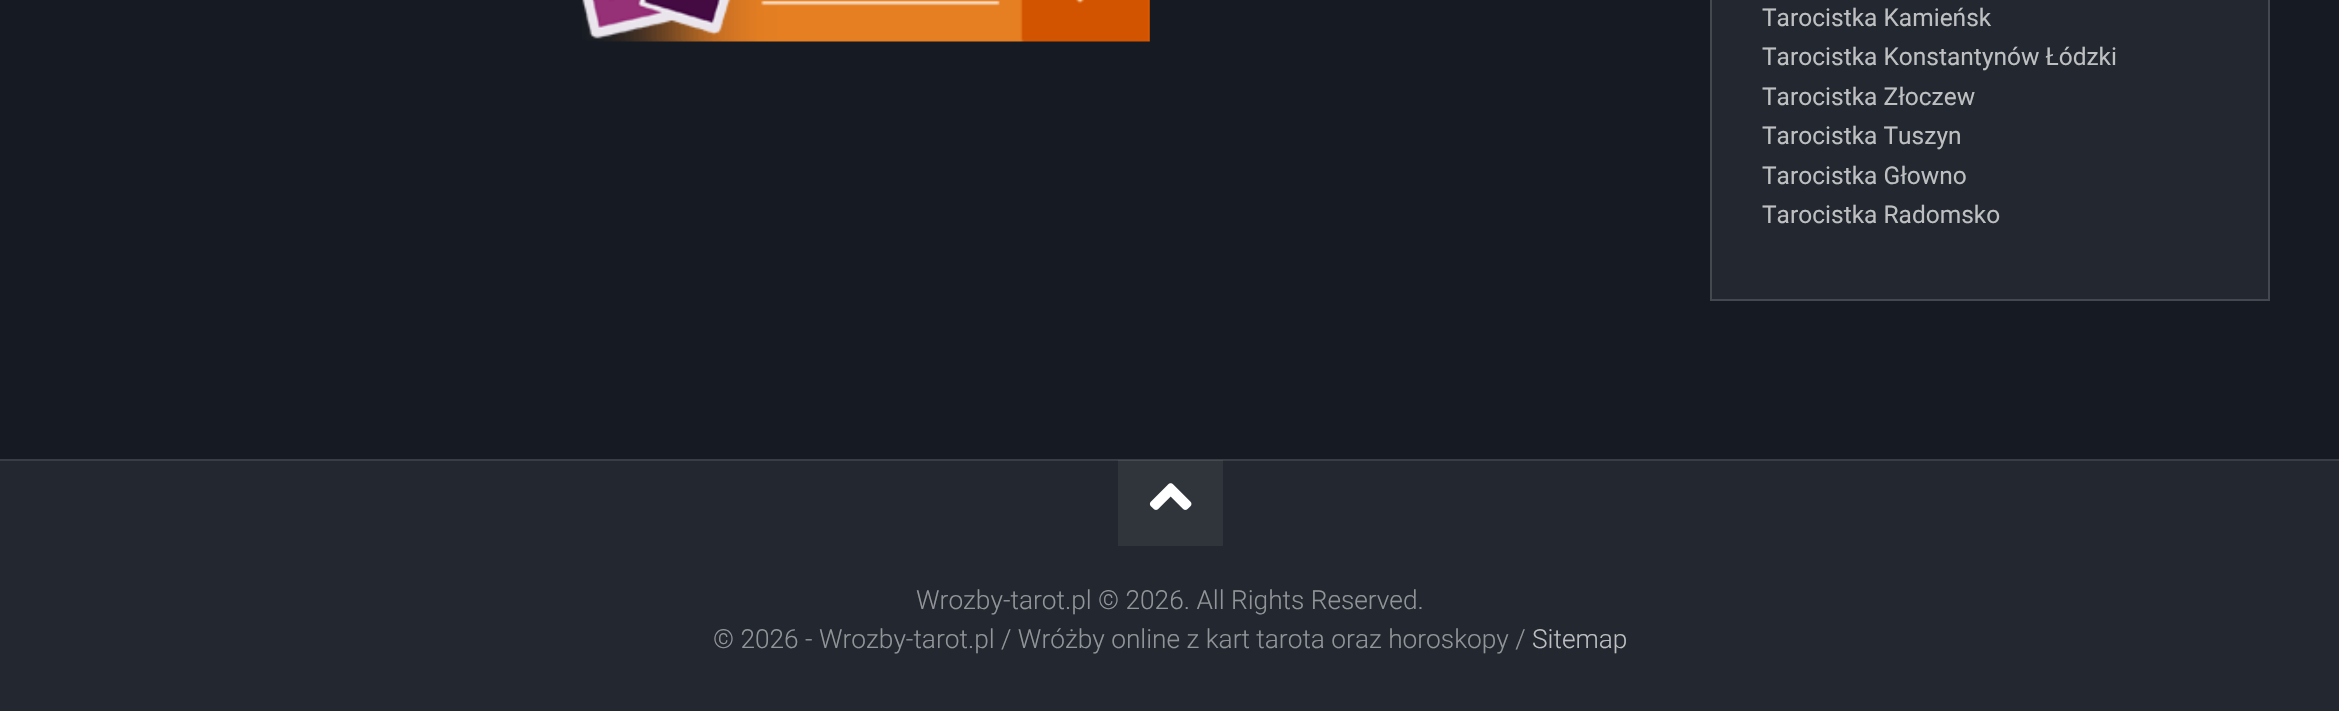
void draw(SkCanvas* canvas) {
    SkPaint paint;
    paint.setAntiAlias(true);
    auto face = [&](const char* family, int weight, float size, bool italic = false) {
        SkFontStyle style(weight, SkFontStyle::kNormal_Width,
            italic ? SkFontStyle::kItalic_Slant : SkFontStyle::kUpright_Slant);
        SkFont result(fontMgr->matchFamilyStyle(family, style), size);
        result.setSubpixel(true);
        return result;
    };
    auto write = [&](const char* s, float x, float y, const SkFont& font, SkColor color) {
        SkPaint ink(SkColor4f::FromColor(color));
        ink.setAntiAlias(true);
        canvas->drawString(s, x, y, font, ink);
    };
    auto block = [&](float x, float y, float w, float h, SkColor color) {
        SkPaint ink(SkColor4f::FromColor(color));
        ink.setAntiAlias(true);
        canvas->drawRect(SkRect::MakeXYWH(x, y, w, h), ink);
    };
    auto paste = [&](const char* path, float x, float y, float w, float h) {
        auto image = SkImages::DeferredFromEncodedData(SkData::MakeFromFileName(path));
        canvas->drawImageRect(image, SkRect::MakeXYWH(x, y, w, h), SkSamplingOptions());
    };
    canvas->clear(SkColorSetRGB(21, 26, 35));
    paste("pic1.png", 582, 0, 568, 42);
    block(1712, 0, 556, 299, SkColorSetRGB(35, 40, 48));
    paint.setStyle(SkPaint::kStroke_Style);
    paint.setStrokeWidth(2);
    paint.setColor(SkColorSetRGB(68, 72, 79));
    canvas->drawRect(SkRect::MakeXYWH(1711, -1, 558, 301), paint);
    auto kFont1 = face("Roboto", 400, 24.5f);
    write("Tarocistka Kamieńsk", 1762, 26, kFont1, SkColorSetRGB(189, 191, 193));
    write("Tarocistka Konstantynów Łódzki", 1762, 65, kFont1, SkColorSetRGB(189, 191, 193));
    write("Tarocistka Złoczew", 1762, 105, kFont1, SkColorSetRGB(189, 191, 193));
    write("Tarocistka Tuszyn", 1762, 144, kFont1, SkColorSetRGB(189, 191, 193));
    write("Tarocistka Głowno", 1762, 184, kFont1, SkColorSetRGB(189, 191, 193));
    write("Tarocistka Radomsko", 1762, 223, kFont1, SkColorSetRGB(189, 191, 193));
    block(0, 461, 2339, 250, SkColorSetRGB(35, 40, 48));
    block(0, 459, 2339, 2, SkColorSetRGB(57, 62, 69));
    block(1118, 460, 105, 86, SkColorSetARGB(15, 255, 255, 255));
    paste("pic2.png", 1149, 483, 43, 27);
    auto kFont2 = face("Roboto", 300, 26.25f);
    write("Wrozby-tarot.pl © 2026. All Rights Reserved.", 916, 609, kFont2, SkColorSetRGB(145, 148, 152));
    write("© 2026 - Wrozby-tarot.pl / Wróżby online z kart tarota oraz horoskopy /", 713, 648, kFont2, SkColorSetRGB(145, 148, 152));
    write("Sitemap", 1532, 648, kFont2, SkColorSetRGB(189, 191, 193));
}
